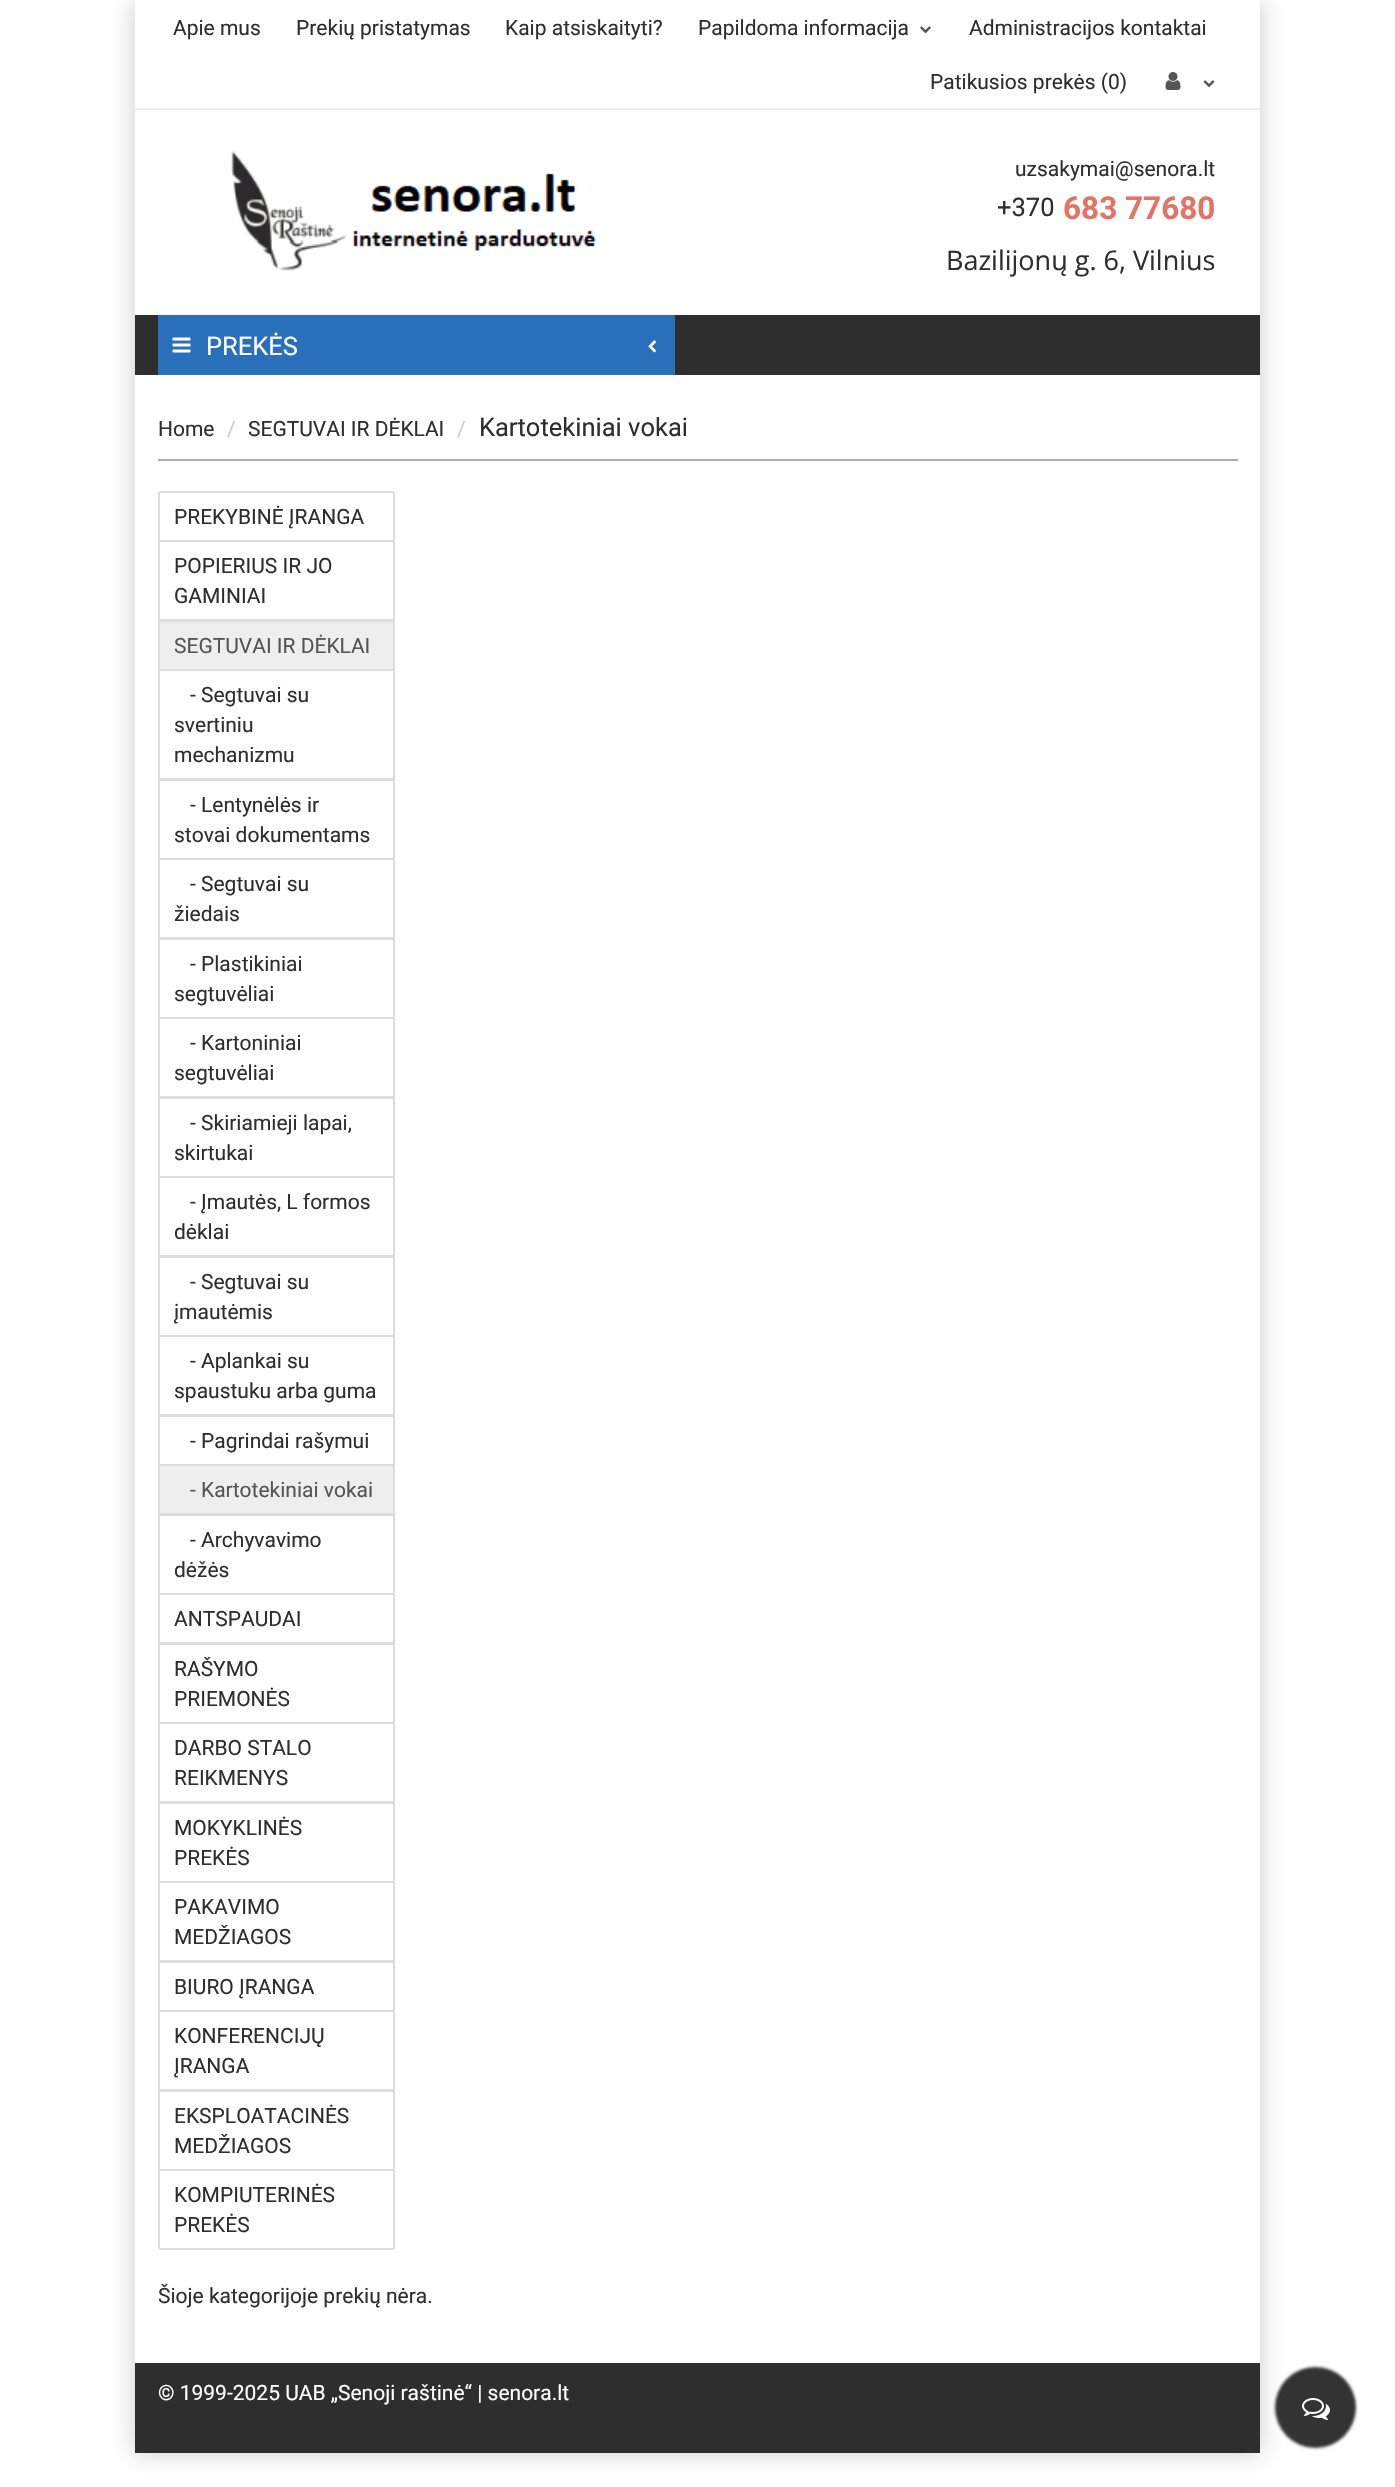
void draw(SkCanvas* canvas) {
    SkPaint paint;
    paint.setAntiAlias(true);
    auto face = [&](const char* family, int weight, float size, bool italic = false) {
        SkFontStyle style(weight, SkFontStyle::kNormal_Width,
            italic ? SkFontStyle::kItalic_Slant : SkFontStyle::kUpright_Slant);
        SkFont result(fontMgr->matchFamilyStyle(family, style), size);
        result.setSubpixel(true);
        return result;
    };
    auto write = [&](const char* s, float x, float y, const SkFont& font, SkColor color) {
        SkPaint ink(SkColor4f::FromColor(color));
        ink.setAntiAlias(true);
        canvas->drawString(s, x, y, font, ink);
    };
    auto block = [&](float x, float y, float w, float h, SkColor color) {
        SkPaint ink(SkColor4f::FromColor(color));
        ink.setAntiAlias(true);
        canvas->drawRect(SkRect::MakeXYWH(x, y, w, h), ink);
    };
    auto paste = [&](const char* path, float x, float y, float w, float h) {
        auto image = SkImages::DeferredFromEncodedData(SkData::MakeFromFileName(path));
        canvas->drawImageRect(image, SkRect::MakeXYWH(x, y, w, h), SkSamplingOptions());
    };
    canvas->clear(SK_ColorWHITE);
    paint.setColor(SkColorSetARGB(51, 0, 0, 0));
    paint.setMaskFilter(SkMaskFilter::MakeBlur(kNormal_SkBlurStyle, 11));
    canvas->drawRect(SkRect::MakeXYWH(135, 0, 1125, 2453), paint);
    paint.setMaskFilter(nullptr);
    block(135, 0, 1125, 2363, SK_ColorWHITE);
    block(135, 108, 1125, 2, SkColorSetRGB(237, 237, 237));
    auto kFont1 = face("Roboto", 400, 21);
    write("Apie mus", 173, 35, kFont1, SkColorSetRGB(46, 46, 46));
    write("Prekių pristatymas", 296, 35, kFont1, SkColorSetRGB(46, 46, 46));
    write("Kaip atsiskaityti?", 505, 35, kFont1, SkColorSetRGB(46, 46, 46));
    write("Papildoma informacija", 698, 35, kFont1, SkColorSetRGB(46, 46, 46));
    paste("pic1.png", 920, 26, 11, 8);
    write("Administracijos kontaktai", 969, 35, kFont1, SkColorSetRGB(46, 46, 46));
    write("Patikusios prekės (0)", 930, 89, kFont1, SkColorSetRGB(46, 46, 46));
    paste("pic2.png", 1165, 72, 16, 18);
    paste("pic3.png", 1203, 80, 12, 8);
    paste("pic4.png", 231, 151, 365, 120);
    write("uzsakymai@senora.lt", 1015, 176, kFont1, SkColorSetRGB(46, 46, 46));
    auto kFont2 = face("Roboto", 400, 25.5f);
    write("+370", 997, 216, kFont2, SkColorSetRGB(46, 46, 46));
    auto kFont3 = face("Roboto", 700, 31.5f);
    write("683 77680", 1063, 219, kFont3, SkColorSetRGB(228, 115, 100));
    auto kFont4 = face("Open Sans", 400, 27);
    write("Bazilijonų g. 6, Vilnius", 946, 270, kFont4, SkColorSetRGB(46, 46, 46));
    block(135, 315, 1125, 60, SkColorSetRGB(46, 46, 46));
    block(158, 315, 517, 60, SkColorSetRGB(42, 111, 186));
    paste("pic5.png", 172, 337, 19, 16);
    write("PREKĖS", 206, 355, kFont2, SK_ColorWHITE);
    paste("pic6.png", 648, 340, 9, 13);
    block(158, 459, 1080, 2, SkColorSetRGB(173, 173, 173));
    write("Home", 158, 436, kFont1, SkColorSetRGB(46, 46, 46));
    write("/", 227, 436, kFont1, SkColorSetRGB(204, 204, 204));
    write("SEGTUVAI IR DĖKLAI", 248, 436, kFont1, SkColorSetRGB(46, 46, 46));
    write("/", 457, 436, kFont1, SkColorSetRGB(204, 204, 204));
    write("Kartotekiniai vokai", 479, 436, kFont2, SkColorSetRGB(46, 46, 46));
    paint.setStyle(SkPaint::kStroke_Style);
    paint.setStrokeWidth(2);
    paint.setColor(SkColorSetRGB(221, 221, 221));
    canvas->drawPath(SkPathBuilder().moveTo(161, 492).lineTo(392, 492).cubicTo(393, 492, 394, 493, 394, 494).lineTo(394, 541).lineTo(159, 541).lineTo(159, 494).cubicTo(159, 493, 160, 492, 161, 492).close().detach(), paint);
    write("PREKYBINĖ ĮRANGA", 174, 524, kFont1, SkColorSetRGB(46, 46, 46));
    canvas->drawRect(SkRect::MakeXYWH(159, 541, 235, 79), paint);
    write("POPIERIUS IR JO", 174, 573, kFont1, SkColorSetRGB(46, 46, 46));
    write("GAMINIAI", 174, 603, kFont1, SkColorSetRGB(46, 46, 46));
    canvas->drawRect(SkRect::MakeXYWH(159, 670, 235, 109), paint);
    paint.setStyle(SkPaint::kFill_Style);
    paint.setColor(SkColorSetRGB(238, 238, 238));
    canvas->drawRect(SkRect::MakeXYWH(159, 621, 235, 49), paint);
    paint.setStyle(SkPaint::kStroke_Style);
    paint.setColor(SkColorSetRGB(221, 221, 221));
    canvas->drawRect(SkRect::MakeXYWH(159, 621, 235, 49), paint);
    write("SEGTUVAI IR DĖKLAI", 174, 653, kFont1, SkColorSetRGB(85, 85, 85));
    write("- Segtuvai su", 190, 702, kFont1, SkColorSetRGB(46, 46, 46));
    write("svertiniu", 174, 732, kFont1, SkColorSetRGB(46, 46, 46));
    write("mechanizmu", 174, 762, kFont1, SkColorSetRGB(46, 46, 46));
    canvas->drawRect(SkRect::MakeXYWH(159, 780, 235, 79), paint);
    write("- Lentynėlės ir", 190, 812, kFont1, SkColorSetRGB(46, 46, 46));
    write("stovai dokumentams", 174, 842, kFont1, SkColorSetRGB(46, 46, 46));
    canvas->drawRect(SkRect::MakeXYWH(159, 859, 235, 79), paint);
    write("- Segtuvai su", 190, 891, kFont1, SkColorSetRGB(46, 46, 46));
    write("žiedais", 174, 921, kFont1, SkColorSetRGB(46, 46, 46));
    canvas->drawRect(SkRect::MakeXYWH(159, 939, 235, 79), paint);
    write("- Plastikiniai", 190, 971, kFont1, SkColorSetRGB(46, 46, 46));
    write("segtuvėliai", 174, 1001, kFont1, SkColorSetRGB(46, 46, 46));
    canvas->drawRect(SkRect::MakeXYWH(159, 1018, 235, 79), paint);
    write("- Kartoniniai", 190, 1050, kFont1, SkColorSetRGB(46, 46, 46));
    write("segtuvėliai", 174, 1080, kFont1, SkColorSetRGB(46, 46, 46));
    canvas->drawRect(SkRect::MakeXYWH(159, 1098, 235, 79), paint);
    write("- Skiriamieji lapai,", 190, 1130, kFont1, SkColorSetRGB(46, 46, 46));
    write("skirtukai", 174, 1160, kFont1, SkColorSetRGB(46, 46, 46));
    canvas->drawRect(SkRect::MakeXYWH(159, 1177, 235, 79), paint);
    write("- Įmautės, L formos", 190, 1209, kFont1, SkColorSetRGB(46, 46, 46));
    write("dėklai", 174, 1239, kFont1, SkColorSetRGB(46, 46, 46));
    canvas->drawRect(SkRect::MakeXYWH(159, 1257, 235, 79), paint);
    write("- Segtuvai su", 190, 1289, kFont1, SkColorSetRGB(46, 46, 46));
    write("įmautėmis", 174, 1319, kFont1, SkColorSetRGB(46, 46, 46));
    canvas->drawRect(SkRect::MakeXYWH(159, 1336, 235, 79), paint);
    write("- Aplankai su", 190, 1368, kFont1, SkColorSetRGB(46, 46, 46));
    write("spaustuku arba guma", 174, 1398, kFont1, SkColorSetRGB(46, 46, 46));
    canvas->drawRect(SkRect::MakeXYWH(159, 1416, 235, 49), paint);
    write("- Pagrindai rašymui", 190, 1448, kFont1, SkColorSetRGB(46, 46, 46));
    canvas->drawRect(SkRect::MakeXYWH(159, 1515, 235, 79), paint);
    paint.setStyle(SkPaint::kFill_Style);
    paint.setColor(SkColorSetRGB(238, 238, 238));
    canvas->drawRect(SkRect::MakeXYWH(159, 1465, 235, 49), paint);
    paint.setStyle(SkPaint::kStroke_Style);
    paint.setColor(SkColorSetRGB(221, 221, 221));
    canvas->drawRect(SkRect::MakeXYWH(159, 1465, 235, 49), paint);
    write("- Kartotekiniai vokai", 190, 1497, kFont1, SkColorSetRGB(85, 85, 85));
    write("- Archyvavimo", 190, 1547, kFont1, SkColorSetRGB(46, 46, 46));
    write("dėžės", 174, 1577, kFont1, SkColorSetRGB(46, 46, 46));
    canvas->drawRect(SkRect::MakeXYWH(159, 1594, 235, 49), paint);
    write("ANTSPAUDAI", 174, 1626, kFont1, SkColorSetRGB(46, 46, 46));
    canvas->drawRect(SkRect::MakeXYWH(159, 1644, 235, 79), paint);
    write("RAŠYMO", 174, 1676, kFont1, SkColorSetRGB(46, 46, 46));
    write("PRIEMONĖS", 174, 1706, kFont1, SkColorSetRGB(46, 46, 46));
    canvas->drawRect(SkRect::MakeXYWH(159, 1723, 235, 79), paint);
    write("DARBO STALO", 174, 1755, kFont1, SkColorSetRGB(46, 46, 46));
    write("REIKMENYS", 174, 1785, kFont1, SkColorSetRGB(46, 46, 46));
    canvas->drawRect(SkRect::MakeXYWH(159, 1803, 235, 79), paint);
    write("MOKYKLINĖS", 174, 1835, kFont1, SkColorSetRGB(46, 46, 46));
    write("PREKĖS", 174, 1865, kFont1, SkColorSetRGB(46, 46, 46));
    canvas->drawRect(SkRect::MakeXYWH(159, 1882, 235, 79), paint);
    write("PAKAVIMO", 174, 1914, kFont1, SkColorSetRGB(46, 46, 46));
    write("MEDŽIAGOS", 174, 1944, kFont1, SkColorSetRGB(46, 46, 46));
    canvas->drawRect(SkRect::MakeXYWH(159, 1962, 235, 49), paint);
    write("BIURO ĮRANGA", 174, 1994, kFont1, SkColorSetRGB(46, 46, 46));
    canvas->drawRect(SkRect::MakeXYWH(159, 2011, 235, 79), paint);
    write("KONFERENCIJŲ", 174, 2043, kFont1, SkColorSetRGB(46, 46, 46));
    write("ĮRANGA", 174, 2073, kFont1, SkColorSetRGB(46, 46, 46));
    canvas->drawRect(SkRect::MakeXYWH(159, 2091, 235, 79), paint);
    write("EKSPLOATACINĖS", 174, 2123, kFont1, SkColorSetRGB(46, 46, 46));
    write("MEDŽIAGOS", 174, 2153, kFont1, SkColorSetRGB(46, 46, 46));
    paint.setStyle(SkPaint::kFill_Style);
    paint.setColor(SK_ColorWHITE);
    canvas->drawPath(SkPathBuilder().moveTo(159, 2170).lineTo(394, 2170).lineTo(394, 2247).cubicTo(394, 2248, 393, 2249, 392, 2249).lineTo(161, 2249).cubicTo(160, 2249, 159, 2248, 159, 2247).close().detach(), paint);
    paint.setStyle(SkPaint::kStroke_Style);
    paint.setColor(SkColorSetRGB(221, 221, 221));
    canvas->drawPath(SkPathBuilder().moveTo(159, 2170).lineTo(394, 2170).lineTo(394, 2247).cubicTo(394, 2248, 393, 2249, 392, 2249).lineTo(161, 2249).cubicTo(160, 2249, 159, 2248, 159, 2247).close().detach(), paint);
    write("KOMPIUTERINĖS", 174, 2202, kFont1, SkColorSetRGB(46, 46, 46));
    write("PREKĖS", 174, 2232, kFont1, SkColorSetRGB(46, 46, 46));
    write("Šioje kategorijoje prekių nėra.", 158, 2303, kFont1, SkColorSetRGB(46, 46, 46));
    block(135, 2363, 1125, 90, SkColorSetRGB(46, 46, 46));
    write("© 1999-2025 UAB „Senoji raštinė“ | senora.lt", 158, 2400, kFont1, SK_ColorWHITE);
    paint.setStyle(SkPaint::kFill_Style);
    paint.setColor(SkColorSetRGB(51, 51, 51));
    paint.setMaskFilter(SkMaskFilter::MakeBlur(kNormal_SkBlurStyle, 1.5f));
    canvas->drawRoundRect(SkRect::MakeXYWH(1275, 2367, 81, 81), 40.5f, 40.5f, paint);
    paint.setMaskFilter(nullptr);
    canvas->drawCircle(1315.5f, 2407.5f, 37.5f, paint);
    paste("pic7.png", 1302, 2398, 28, 22);
}
